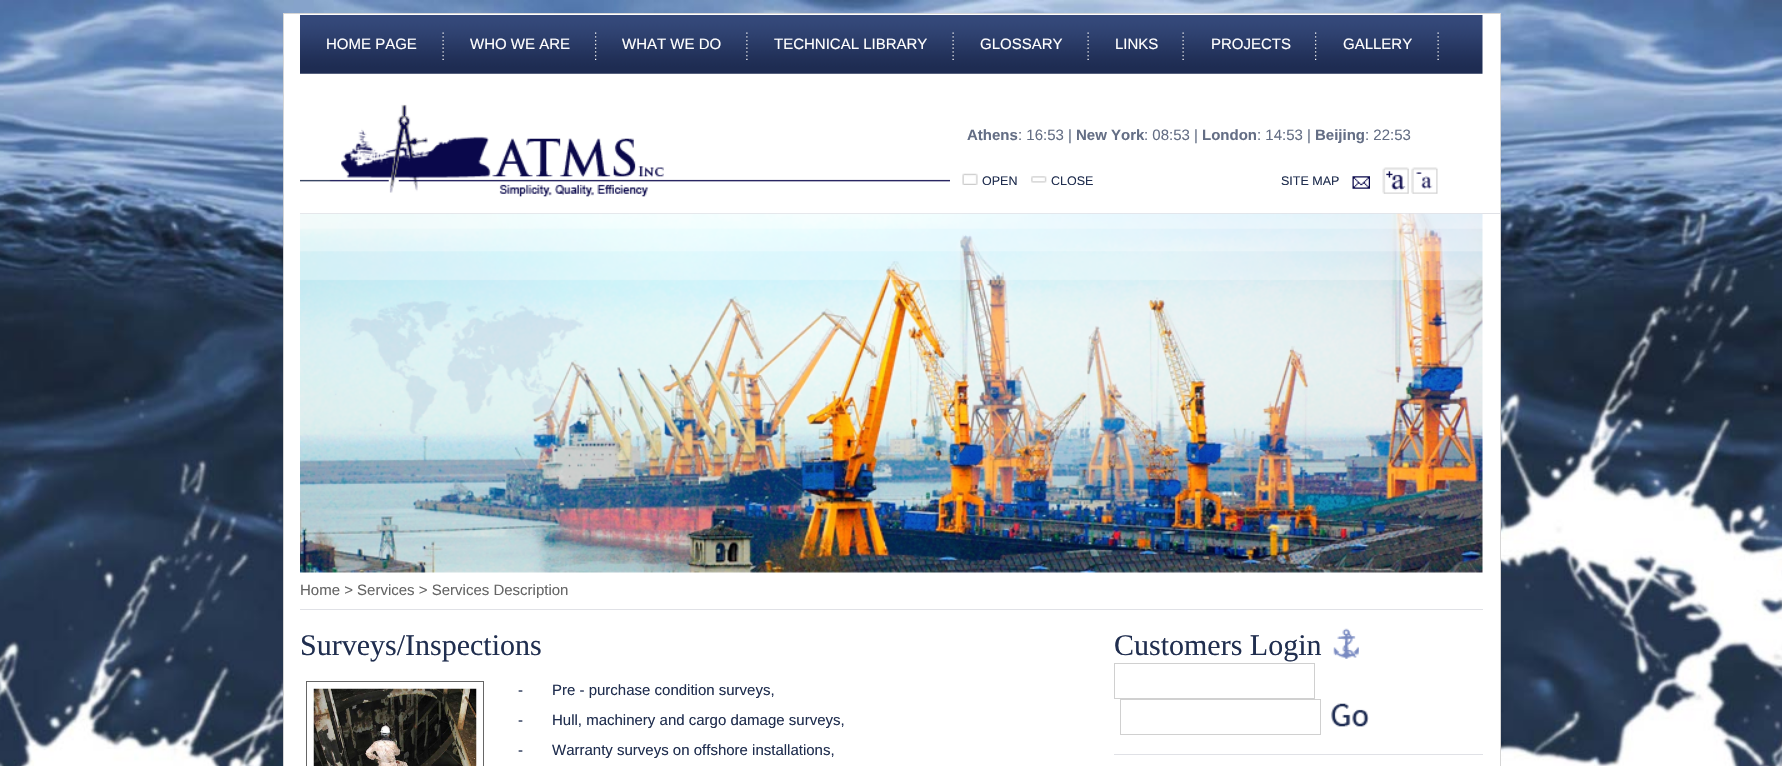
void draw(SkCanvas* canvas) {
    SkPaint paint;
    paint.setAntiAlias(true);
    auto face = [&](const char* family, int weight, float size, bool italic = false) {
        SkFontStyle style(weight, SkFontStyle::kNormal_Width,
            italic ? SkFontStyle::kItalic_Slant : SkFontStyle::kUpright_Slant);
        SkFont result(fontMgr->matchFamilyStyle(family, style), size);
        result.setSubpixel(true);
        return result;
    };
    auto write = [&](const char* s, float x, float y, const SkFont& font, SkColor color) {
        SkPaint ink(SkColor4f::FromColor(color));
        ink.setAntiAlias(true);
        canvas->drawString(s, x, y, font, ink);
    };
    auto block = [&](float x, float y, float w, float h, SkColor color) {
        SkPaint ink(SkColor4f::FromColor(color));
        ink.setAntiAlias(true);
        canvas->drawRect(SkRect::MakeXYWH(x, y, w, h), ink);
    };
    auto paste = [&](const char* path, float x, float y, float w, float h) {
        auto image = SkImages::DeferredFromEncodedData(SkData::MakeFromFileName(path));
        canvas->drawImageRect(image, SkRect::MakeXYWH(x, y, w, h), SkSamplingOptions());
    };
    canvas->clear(SK_ColorWHITE);
    paste("pic1.png", 0, 0, 1782, 766);
    paint.setColor(SK_ColorWHITE);
    canvas->drawRect(SkRect::MakeXYWH(283.5f, 13.5f, 1217, 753), paint);
    paint.setStyle(SkPaint::kStroke_Style);
    paint.setStrokeWidth(1);
    paint.setColor(SkColorSetRGB(214, 214, 214));
    canvas->drawRect(SkRect::MakeXYWH(283.5f, 13.5f, 1217, 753), paint);
    paste("pic2.png", 300, 15, 1183, 59);
    paste("pic3.png", 442, 32, 2, 28);
    auto kFont1 = face("Liberation Sans", 400, 15);
    write("HOME PAGE", 326, 49, kFont1, SK_ColorWHITE);
    paste("pic4.png", 595, 32, 2, 28);
    write("WHO WE ARE", 470, 49, kFont1, SK_ColorWHITE);
    paste("pic5.png", 746, 32, 2, 28);
    write("WHAT WE DO", 622, 49, kFont1, SK_ColorWHITE);
    paste("pic3.png", 952, 32, 2, 28);
    write("TECHNICAL LIBRARY", 774, 49, kFont1, SK_ColorWHITE);
    paste("pic3.png", 1087, 32, 2, 28);
    write("GLOSSARY", 980, 49, kFont1, SK_ColorWHITE);
    paste("pic6.png", 1182, 32, 2, 28);
    write("LINKS", 1115, 49, kFont1, SK_ColorWHITE);
    paste("pic4.png", 1315, 32, 2, 28);
    write("PROJECTS", 1211, 49, kFont1, SK_ColorWHITE);
    paste("pic6.png", 1437, 32, 2, 28);
    write("GALLERY", 1343, 49, kFont1, SK_ColorWHITE);
    paste("pic7.png", 300, 104, 650, 93);
    auto kFont2 = face("Liberation Sans", 700, 15);
    write("Athens", 967, 140, kFont2, SkColorSetRGB(100, 110, 133));
    write(": 16:53 |", 1018, 140, kFont1, SkColorSetRGB(100, 110, 133));
    write("New York", 1076, 140, kFont2, SkColorSetRGB(100, 110, 133));
    write(": 08:53 |", 1144, 140, kFont1, SkColorSetRGB(100, 110, 133));
    write("London", 1202, 140, kFont2, SkColorSetRGB(100, 110, 133));
    write(": 14:53 |", 1257, 140, kFont1, SkColorSetRGB(100, 110, 133));
    write("Beijing", 1315, 140, kFont2, SkColorSetRGB(100, 110, 133));
    write(": 22:53", 1365, 140, kFont1, SkColorSetRGB(100, 110, 133));
    paste("pic8.png", 962, 173, 16, 12);
    auto kFont3 = face("Liberation Sans", 400, 12.5f);
    write("OPEN", 982, 185, kFont3, SkColorSetRGB(32, 46, 79));
    paste("pic9.png", 1031, 176, 16, 7);
    write("CLOSE", 1051, 185, kFont3, SkColorSetRGB(32, 46, 79));
    write("SITE MAP", 1281, 185, kFont3, SkColorSetRGB(32, 46, 79));
    paste("pic10.png", 1352, 176, 18, 13);
    paste("pic11.png", 1382, 167, 27, 27);
    paste("pic12.png", 1411, 167, 27, 27);
    block(300, 213, 1200, 1, SkColorSetRGB(224, 225, 230));
    paste("pic13.png", 300, 213, 1183, 360);
    block(300, 609, 1183, 1, SkColorSetRGB(224, 225, 230));
    write("Home > Services > Services Description", 300, 595, kFont1, SkColorSetRGB(102, 102, 102));
    auto kFont4 = face("Liberation Serif", 400, 30);
    write("Surveys/Inspections", 300, 655, kFont4, SkColorSetRGB(32, 46, 79));
    paint.setColor(SkColorSetRGB(102, 102, 102));
    canvas->drawRect(SkRect::MakeXYWH(306.5f, 681.5f, 177, 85), paint);
    paste("pic14.png", 313, 688, 164, 78);
    write("-", 518, 695, kFont1, SkColorSetRGB(32, 46, 79));
    write("Pre - purchase condition surveys,", 552, 695, kFont1, SkColorSetRGB(32, 46, 79));
    write("-", 518, 725, kFont1, SkColorSetRGB(32, 46, 79));
    write("Hull, machinery and cargo damage surveys,", 552, 725, kFont1, SkColorSetRGB(32, 46, 79));
    write("-", 518, 755, kFont1, SkColorSetRGB(32, 46, 79));
    write("Warranty surveys on offshore installations,", 552, 755, kFont1, SkColorSetRGB(32, 46, 79));
    block(1114, 754, 369, 1, SkColorSetRGB(224, 225, 230));
    write("Customers Login", 1114, 655, kFont4, SkColorSetRGB(32, 46, 79));
    paste("pic15.png", 1333, 628, 26, 31);
    paint.setColor(SkColorSetRGB(208, 208, 208));
    canvas->drawRect(SkRect::MakeXYWH(1114.5f, 663.5f, 200, 35), paint);
    canvas->drawRect(SkRect::MakeXYWH(1120.5f, 699.5f, 200, 35), paint);
    paste("pic16.png", 1331, 703, 38, 24);
}
